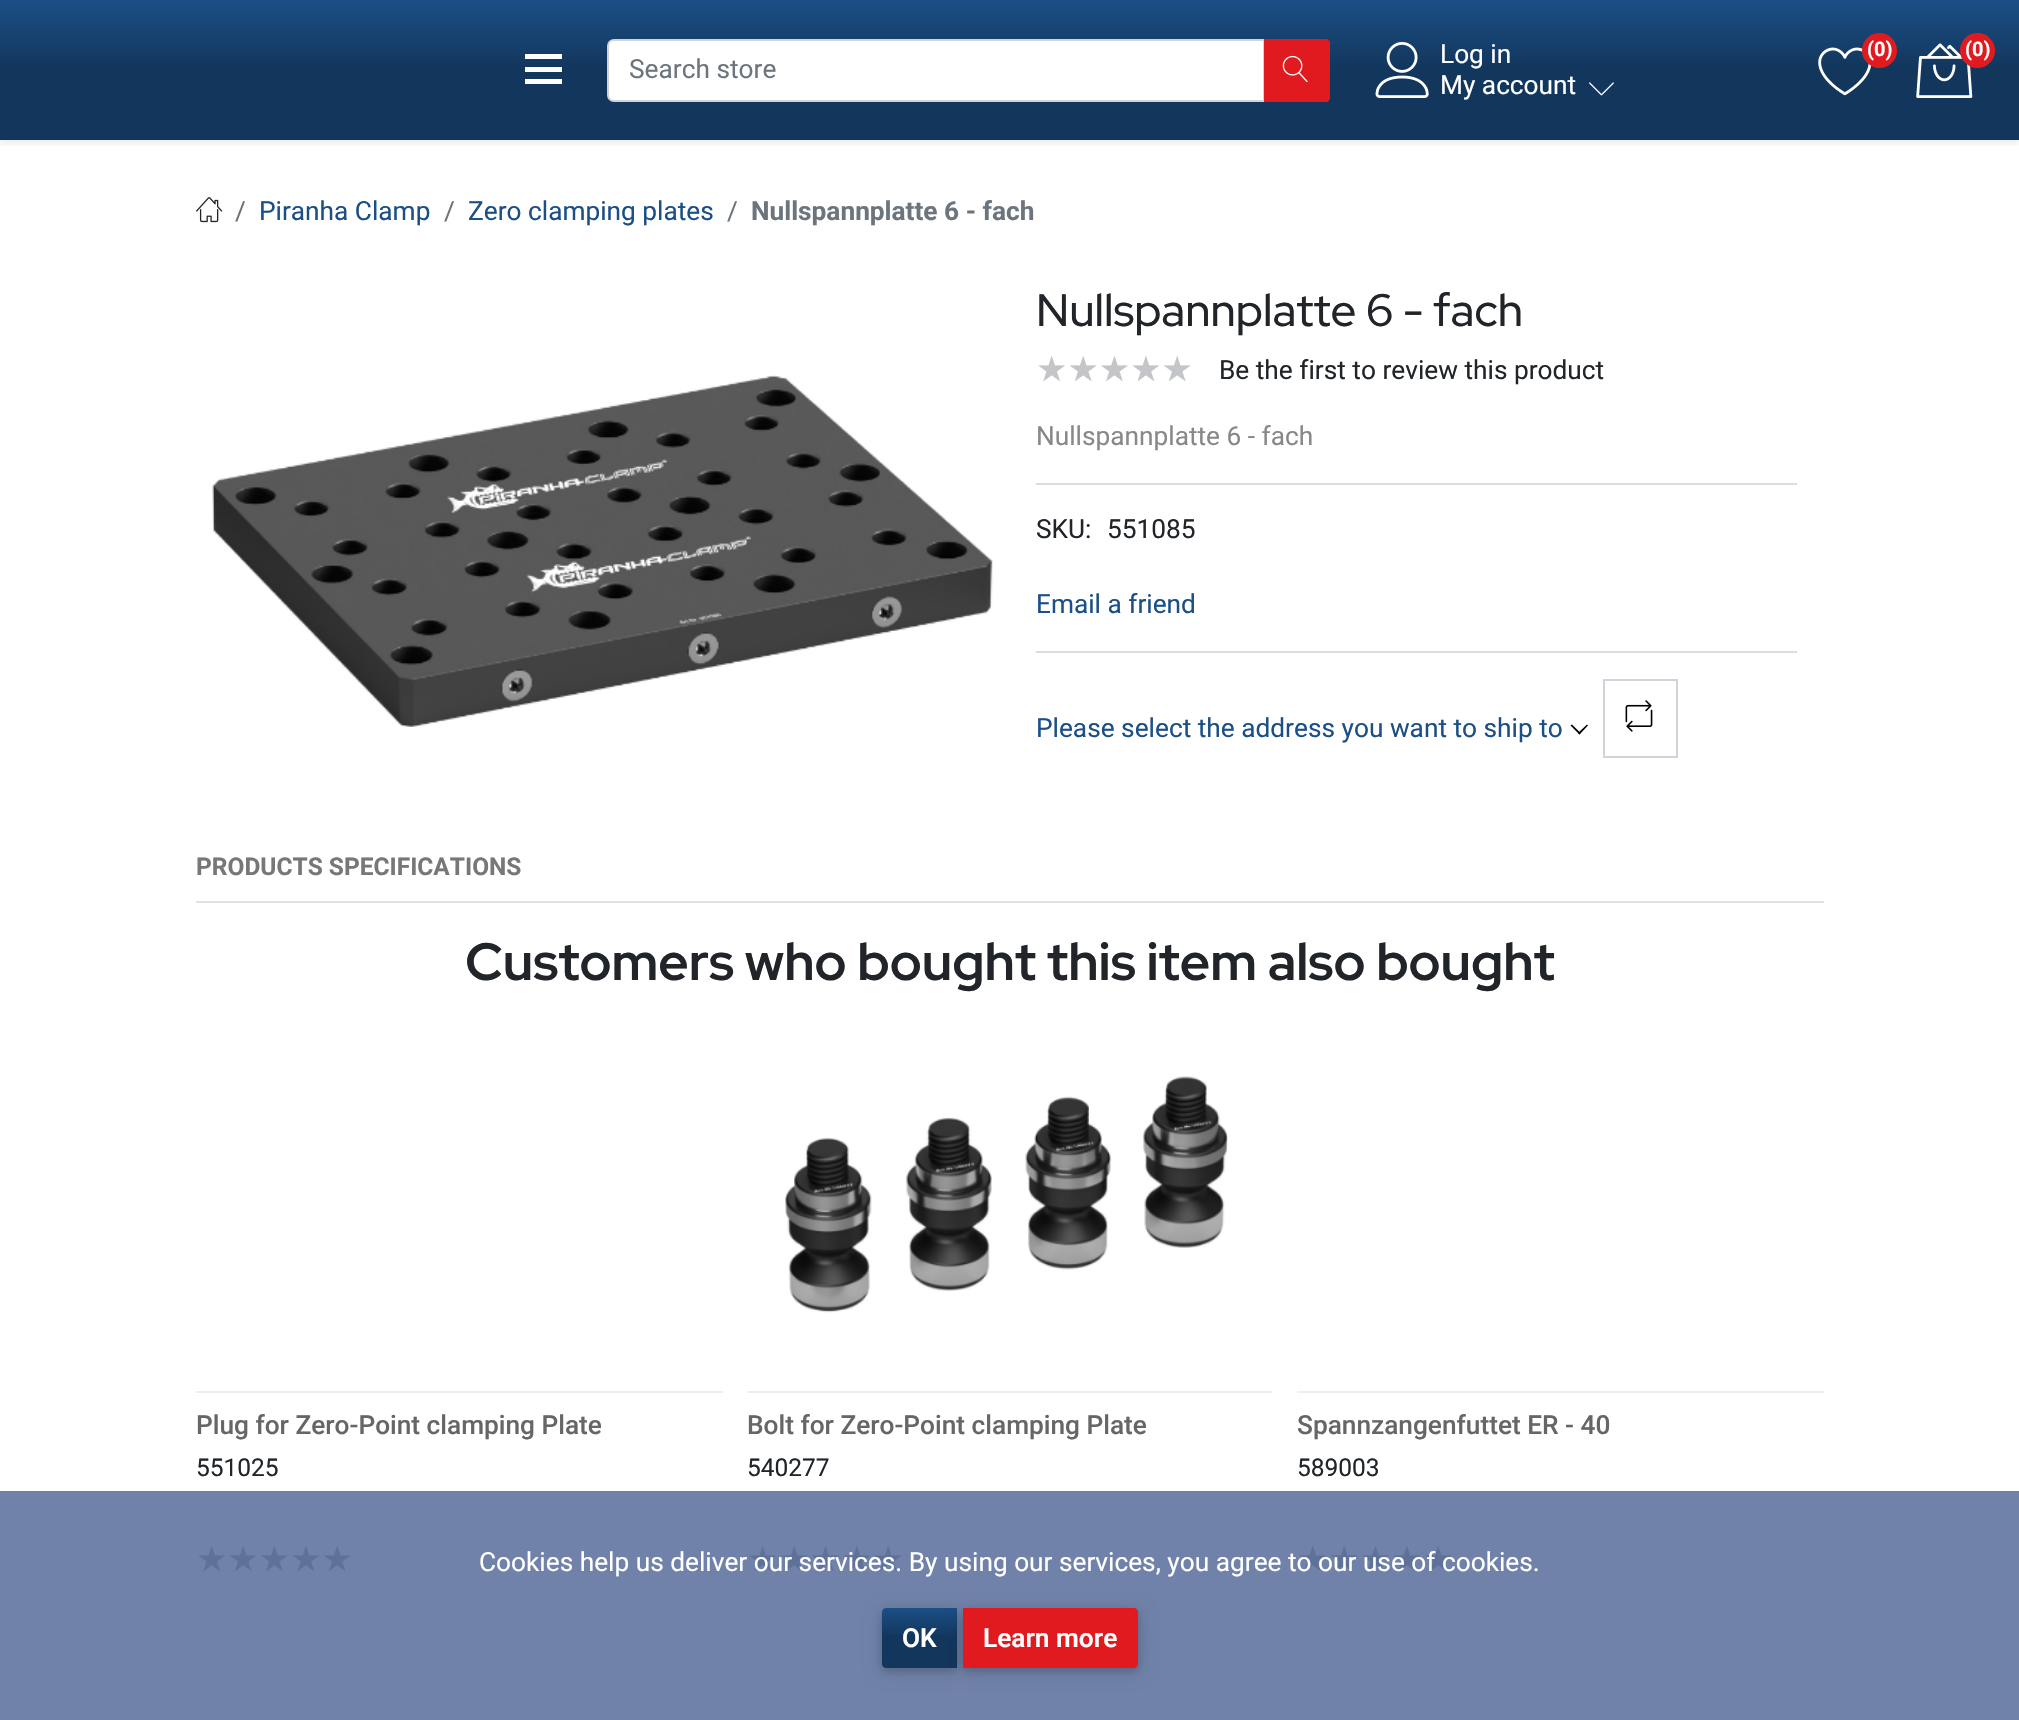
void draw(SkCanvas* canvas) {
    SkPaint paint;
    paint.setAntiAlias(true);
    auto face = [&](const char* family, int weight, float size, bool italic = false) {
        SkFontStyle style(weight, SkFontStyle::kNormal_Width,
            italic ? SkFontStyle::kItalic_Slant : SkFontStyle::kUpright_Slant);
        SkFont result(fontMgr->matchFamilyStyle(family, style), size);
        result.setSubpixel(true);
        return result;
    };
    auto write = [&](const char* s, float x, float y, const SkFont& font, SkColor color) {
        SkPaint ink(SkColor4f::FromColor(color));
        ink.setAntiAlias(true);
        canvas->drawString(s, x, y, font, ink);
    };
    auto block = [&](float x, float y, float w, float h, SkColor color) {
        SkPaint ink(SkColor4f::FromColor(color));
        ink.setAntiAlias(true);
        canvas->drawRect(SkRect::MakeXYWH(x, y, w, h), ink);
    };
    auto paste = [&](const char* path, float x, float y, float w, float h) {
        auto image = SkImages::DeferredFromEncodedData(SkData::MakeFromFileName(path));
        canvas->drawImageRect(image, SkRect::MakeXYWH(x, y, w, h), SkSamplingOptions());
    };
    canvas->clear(SK_ColorWHITE);
    block(0, 1491, 2019, 229, SkColorSetRGB(112, 130, 169));
    {
        const SkColor colors[] = {SkColorSetRGB(27, 79, 134), SkColorSetRGB(18, 54, 92)};
        const float stops[] = {0, 0.5f};
        const SkPoint ends[] = {{1010, 0}, {1010, 140}};
        paint.setShader(SkGradientShader::MakeLinear(ends, colors, stops, 2, SkTileMode::kClamp));
        paint.setAlpha(255);
    }
    canvas->drawRect(SkRect::MakeXYWH(0, 0, 2019, 140), paint);
    canvas->save();
    canvas->clipRect(SkRect::MakeXYWH(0, 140, 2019, 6));
    paint.setShader(nullptr);
    paint.setColor(SkColorSetARGB(18, 0, 0, 0));
    paint.setMaskFilter(SkMaskFilter::MakeBlur(kNormal_SkBlurStyle, 3.5f));
    canvas->drawRect(SkRect::MakeXYWH(0, 4, 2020, 140), paint);
    paint.setMaskFilter(nullptr);
    canvas->restore();
    block(525, 54, 37, 5, SK_ColorWHITE);
    block(525, 67, 37, 5, SK_ColorWHITE);
    block(525, 79, 37, 5, SK_ColorWHITE);
    paint.setColor(SK_ColorWHITE);
    canvas->drawPath(SkPathBuilder().moveTo(614, 40).lineTo(1264, 40).lineTo(1264, 101).lineTo(614, 101).cubicTo(610.5f, 101, 608, 98.5f, 608, 95).lineTo(608, 46).cubicTo(608, 42.5f, 610.5f, 40, 614, 40).close().detach(), paint);
    paint.setStyle(SkPaint::kStroke_Style);
    paint.setStrokeWidth(2);
    paint.setColor(SkColorSetRGB(206, 212, 218));
    canvas->drawPath(SkPathBuilder().moveTo(614, 40).lineTo(1264, 40).lineTo(1264, 101).lineTo(614, 101).cubicTo(610.5f, 101, 608, 98.5f, 608, 95).lineTo(608, 46).cubicTo(608, 42.5f, 610.5f, 40, 614, 40).close().detach(), paint);
    auto kFont1 = face("Roboto", 400, 26.25f);
    write("Search store", 629, 78, kFont1, SkColorSetRGB(108, 117, 125));
    paint.setStyle(SkPaint::kFill_Style);
    paint.setColor(SkColorSetRGB(225, 26, 32));
    canvas->drawPath(SkPathBuilder().moveTo(1264, 39).lineTo(1326, 39).cubicTo(1328, 39, 1330, 41, 1330, 43).lineTo(1330, 98).cubicTo(1330, 100, 1328, 102, 1326, 102).lineTo(1264, 102).close().detach(), paint);
    paste("pic1.png", 1282, 55, 26, 28);
    paste("pic2.png", 1375, 42, 54, 56);
    write("Log in", 1440, 63, kFont1, SK_ColorWHITE);
    write("My account", 1440, 94, kFont1, SK_ColorWHITE);
    paste("pic3.png", 1589, 82, 25, 14);
    paste("pic4.png", 1818, 47, 54, 49);
    canvas->drawCircle(1879.5f, 50.5f, 17.5f, paint);
    auto kFont2 = face("Roboto", 700, 20);
    write("(0)", 1867, 56, kFont2, SK_ColorWHITE);
    paste("pic5.png", 1916, 43, 57, 55);
    canvas->drawCircle(1977.5f, 50.5f, 17.5f, paint);
    write("(0)", 1965, 56, kFont2, SK_ColorWHITE);
    paste("pic6.png", 196, 197, 27, 26);
    write("/", 235, 220, kFont1, SkColorSetRGB(108, 117, 125));
    write("Piranha Clamp", 259, 220, kFont1, SkColorSetRGB(27, 79, 134));
    write("/", 444, 220, kFont1, SkColorSetRGB(108, 117, 125));
    write("Zero clamping plates", 468, 220, kFont1, SkColorSetRGB(27, 79, 134));
    write("/", 727, 220, kFont1, SkColorSetRGB(108, 117, 125));
    auto kFont3 = face("Roboto", 700, 26.25f);
    write("Nullspannplatte 6 - fach", 751, 220, kFont3, SkColorSetRGB(108, 117, 125));
    paste("pic7.png", 212, 375, 781, 352);
    auto kFont4 = face("Red Hat Display", 500, 45.5f);
    write("Nullspannplatte 6 - fach", 1036, 326, kFont4, SkColorSetRGB(33, 37, 41));
    auto kFont5 = face("DejaVu Sans", 400, 35);
    write("★★★★★", 1036, 381, kFont5, SkColorSetRGB(195, 197, 201));
    write("Be the first to review this product", 1219, 379, kFont1, SkColorSetRGB(33, 37, 41));
    write("Nullspannplatte 6 - fach", 1036, 445, kFont1, SkColorSetRGB(136, 136, 136));
    block(1036, 483, 761, 2, SkColorSetRGB(220, 220, 220));
    block(1036, 651, 761, 2, SkColorSetRGB(220, 220, 220));
    write("SKU:", 1036, 538, kFont1, SkColorSetRGB(33, 37, 41));
    write("551085", 1107, 538, kFont1, SkColorSetRGB(33, 37, 41));
    write("Email a friend", 1036, 613, kFont1, SkColorSetRGB(27, 79, 134));
    write("Please select the address you want to ship to", 1036, 737, kFont1, SkColorSetRGB(27, 79, 134));
    paint.setColor(SK_ColorBLACK);
    canvas->drawPath(SkPathBuilder().moveTo(1587, 724.5f).lineTo(1588, 725.5f).lineTo(1579.5f, 734.5f).lineTo(1578, 733).close().detach(), paint);
    canvas->drawPath(SkPathBuilder().moveTo(1572, 724.5f).lineTo(1580.5f, 733).lineTo(1579.5f, 734.5f).lineTo(1570.5f, 725.5f).close().detach(), paint);
    paint.setStyle(SkPaint::kStroke_Style);
    paint.setColor(SkColorSetRGB(206, 212, 218));
    canvas->drawRect(SkRect::MakeXYWH(1604, 680, 73, 77), paint);
    paste("pic8.png", 1625, 700, 28, 32);
    block(196, 901, 1628, 2, SkColorSetRGB(222, 226, 230));
    auto kFont6 = face("Roboto", 700, 24.5f);
    write("PRODUCTS SPECIFICATIONS", 196, 875, kFont6, SkColorSetRGB(119, 119, 119));
    auto kFont7 = face("Red Hat Display", 700, 52.5f);
    write("Customers who bought this item also bought", 465, 980, kFont7, SkColorSetRGB(33, 37, 41));
    block(196, 1391, 527, 2, SkColorSetRGB(238, 238, 238));
    auto kFont8 = face("Roboto", 500, 26.25f);
    write("Plug for Zero-Point clamping Plate", 196, 1434, kFont8, SkColorSetRGB(102, 102, 102));
    auto kFont9 = face("Roboto", 400, 24.5f);
    write("551025", 196, 1476, kFont9, SkColorSetRGB(33, 37, 41));
    write("★★★★★", 196, 1571, kFont5, SkColorSetRGB(94, 113, 153));
    paste("pic9.png", 785, 1076, 443, 237);
    block(747, 1391, 525, 2, SkColorSetRGB(238, 238, 238));
    write("Bolt for Zero-Point clamping Plate", 747, 1434, kFont8, SkColorSetRGB(102, 102, 102));
    write("540277", 747, 1476, kFont9, SkColorSetRGB(33, 37, 41));
    write("★★★★★", 747, 1571, kFont5, SkColorSetRGB(94, 113, 153));
    block(1297, 1391, 527, 2, SkColorSetRGB(238, 238, 238));
    write("Spannzangenfuttet ER - 40", 1297, 1434, kFont8, SkColorSetRGB(102, 102, 102));
    write("589003", 1297, 1476, kFont9, SkColorSetRGB(33, 37, 41));
    write("★★★★★", 1297, 1571, kFont5, SkColorSetRGB(94, 113, 153));
    write("Cookies help us deliver our services. By using our services, you agree to our use of cookies.", 479, 1571, kFont1, SK_ColorWHITE);
    paint.setStyle(SkPaint::kFill_Style);
    paint.setColor(SkColorSetARGB(31, 0, 0, 0));
    paint.setMaskFilter(SkMaskFilter::MakeBlur(kNormal_SkBlurStyle, 9));
    canvas->drawRoundRect(SkRect::MakeXYWH(882, 1612, 75, 59), 4, 4, paint);
    paint.setMaskFilter(nullptr);
    paint.setColor(SkColorSetARGB(41, 0, 0, 0));
    paint.setMaskFilter(SkMaskFilter::MakeBlur(kNormal_SkBlurStyle, 4.5f));
    canvas->drawRoundRect(SkRect::MakeXYWH(882, 1612, 75, 59), 4, 4, paint);
    paint.setMaskFilter(nullptr);
    {
        const SkColor colors[] = {SkColorSetRGB(27, 79, 134), SkColorSetRGB(18, 54, 92)};
        const float stops[] = {0, 0.5f};
        const SkPoint ends[] = {{920, 1608}, {920, 1668}};
        paint.setShader(SkGradientShader::MakeLinear(ends, colors, stops, 2, SkTileMode::kClamp));
        paint.setAlpha(255);
    }
    canvas->drawPath(SkPathBuilder().moveTo(886, 1608).lineTo(957, 1608).lineTo(957, 1668).lineTo(886, 1668).cubicTo(884, 1668, 882, 1666, 882, 1664).lineTo(882, 1612).cubicTo(882, 1610, 884, 1608, 886, 1608).close().detach(), paint);
    auto kFont10 = face("Roboto", 600, 26.25f);
    write("OK", 902, 1647, kFont10, SK_ColorWHITE);
    paint.setShader(nullptr);
    paint.setColor(SkColorSetARGB(31, 0, 0, 0));
    paint.setMaskFilter(SkMaskFilter::MakeBlur(kNormal_SkBlurStyle, 9));
    canvas->drawRoundRect(SkRect::MakeXYWH(963, 1612, 175, 59), 4, 4, paint);
    paint.setMaskFilter(nullptr);
    paint.setColor(SkColorSetARGB(41, 0, 0, 0));
    paint.setMaskFilter(SkMaskFilter::MakeBlur(kNormal_SkBlurStyle, 4.5f));
    canvas->drawRoundRect(SkRect::MakeXYWH(963, 1612, 175, 59), 4, 4, paint);
    paint.setMaskFilter(nullptr);
    paint.setColor(SkColorSetRGB(225, 26, 32));
    canvas->drawPath(SkPathBuilder().moveTo(963, 1608).lineTo(1134, 1608).cubicTo(1136, 1608, 1138, 1610, 1138, 1612).lineTo(1138, 1664).cubicTo(1138, 1666, 1136, 1668, 1134, 1668).lineTo(963, 1668).close().detach(), paint);
    write("Learn more", 983, 1647, kFont10, SK_ColorWHITE);
}
